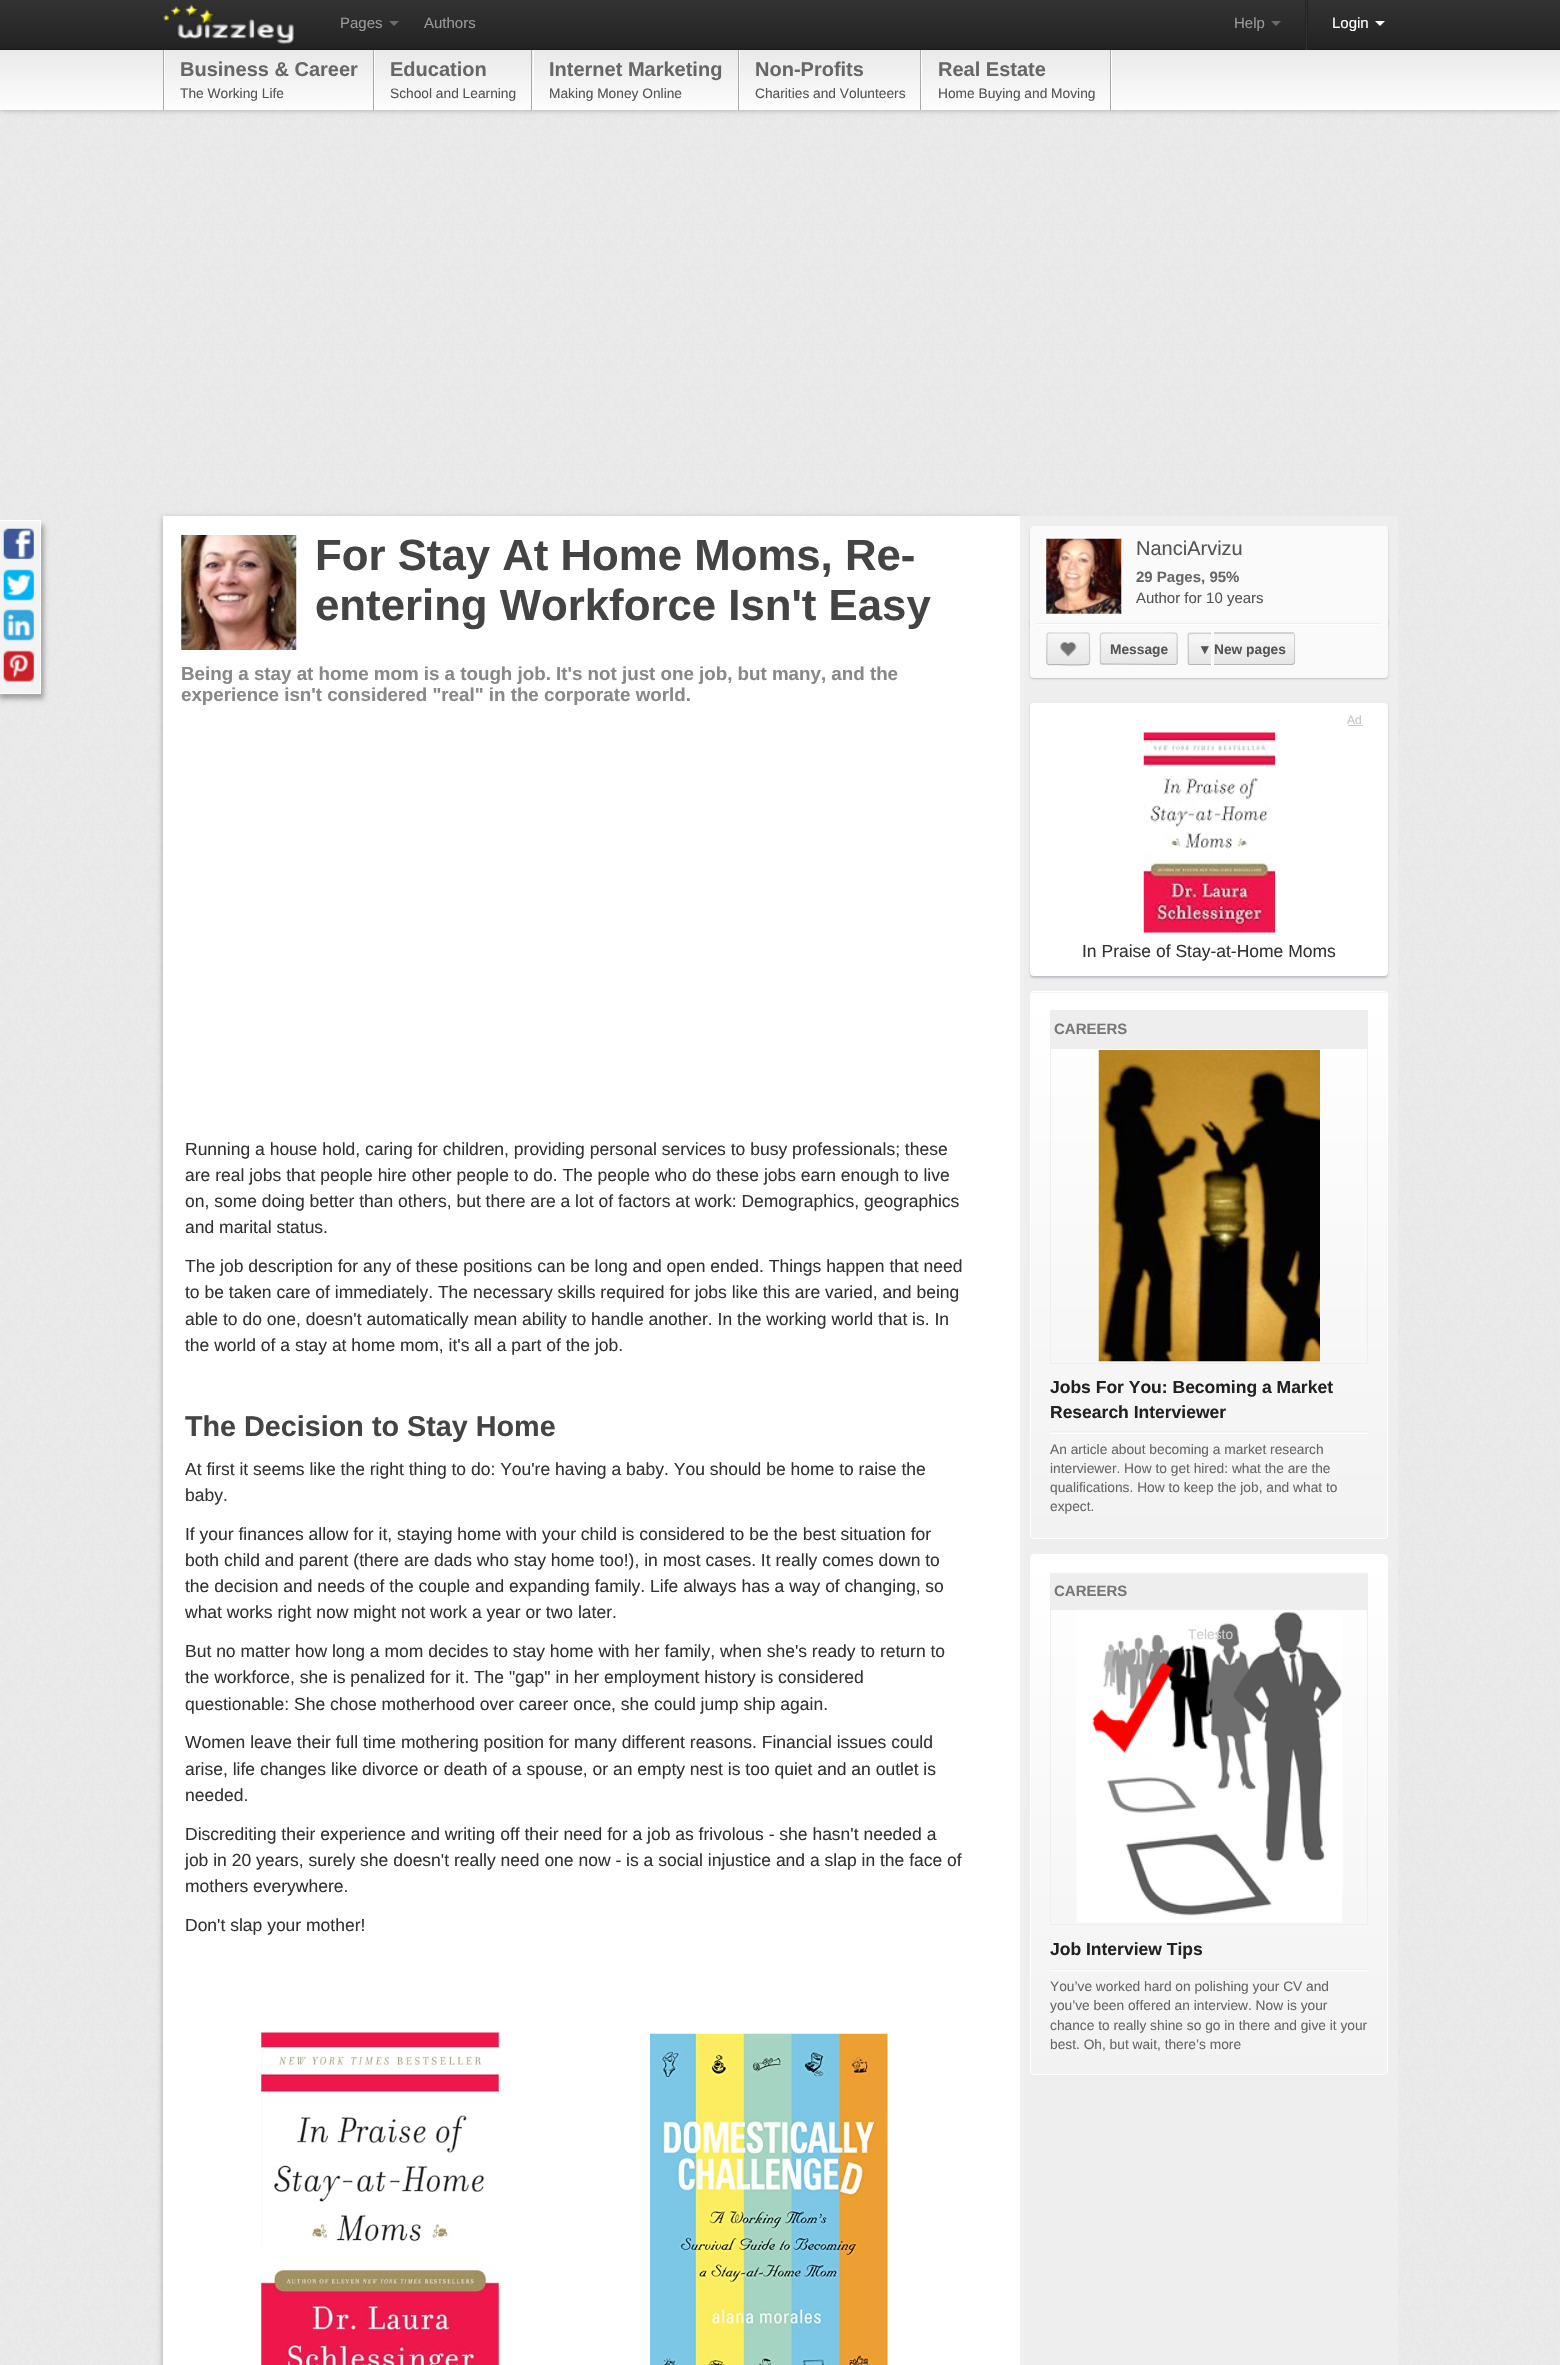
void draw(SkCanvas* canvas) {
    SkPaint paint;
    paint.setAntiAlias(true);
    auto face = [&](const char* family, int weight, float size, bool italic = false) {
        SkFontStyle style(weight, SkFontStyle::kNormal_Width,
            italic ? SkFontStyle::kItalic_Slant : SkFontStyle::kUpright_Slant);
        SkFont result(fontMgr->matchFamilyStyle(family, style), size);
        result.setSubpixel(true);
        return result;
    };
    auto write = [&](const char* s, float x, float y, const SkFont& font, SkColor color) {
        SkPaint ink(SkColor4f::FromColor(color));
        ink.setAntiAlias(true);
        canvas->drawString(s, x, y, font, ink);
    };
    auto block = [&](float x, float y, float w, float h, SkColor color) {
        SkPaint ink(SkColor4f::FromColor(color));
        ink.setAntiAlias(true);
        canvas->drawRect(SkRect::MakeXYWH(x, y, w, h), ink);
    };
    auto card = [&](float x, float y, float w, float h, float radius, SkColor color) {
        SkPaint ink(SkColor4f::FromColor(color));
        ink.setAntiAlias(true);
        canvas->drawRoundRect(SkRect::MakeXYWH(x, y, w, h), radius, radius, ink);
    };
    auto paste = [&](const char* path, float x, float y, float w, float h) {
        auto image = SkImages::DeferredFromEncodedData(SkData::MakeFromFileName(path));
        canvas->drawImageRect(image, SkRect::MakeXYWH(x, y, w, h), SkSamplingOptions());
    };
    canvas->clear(SkColorSetRGB(237, 237, 237));
    paste("pic1.png", 0, 110, 1560, 2255);
    {
        const SkColor colors[] = {SkColorSetRGB(51, 51, 51), SkColorSetRGB(34, 34, 34)};
        const float stops[] = {0, 1};
        const SkPoint ends[] = {{780, 0}, {780, 50}};
        paint.setShader(SkGradientShader::MakeLinear(ends, colors, stops, 2, SkTileMode::kClamp));
        paint.setAlpha(255);
    }
    canvas->drawRect(SkRect::MakeXYWH(0, 0, 1560, 49), paint);
    block(0, 49, 1560, 1, SkColorSetRGB(31, 31, 31));
    paint.setShader(nullptr);
    paint.setColor(SkColorSetARGB(77, 0, 0, 0));
    paint.setMaskFilter(SkMaskFilter::MakeBlur(kNormal_SkBlurStyle, 3));
    canvas->drawRect(SkRect::MakeXYWH(0, 50, 1560, 60), paint);
    paint.setMaskFilter(nullptr);
    paste("pic2.png", 163, 4, 131, 40);
    auto kFont1 = face("Liberation Sans", 400, 15);
    write("Pages", 340, 28, kFont1, SkColorSetRGB(153, 153, 153));
    paint.setColor(SkColorSetRGB(107, 107, 107));
    canvas->drawPath(SkPathBuilder().moveTo(389, 21).lineTo(399, 21).lineTo(394, 26).close().detach(), paint);
    write("Authors", 424, 28, kFont1, SkColorSetRGB(153, 153, 153));
    write("Help", 1234, 28, kFont1, SkColorSetRGB(153, 153, 153));
    canvas->drawPath(SkPathBuilder().moveTo(1271, 21).lineTo(1281, 21).lineTo(1276, 26).close().detach(), paint);
    block(1305, 0, 3, 50, SkColorSetRGB(34, 34, 34));
    block(1306, 0, 1, 50, SkColorSetRGB(51, 51, 51));
    write("Login", 1332, 28, kFont1, SK_ColorWHITE);
    paint.setColor(SK_ColorWHITE);
    canvas->drawPath(SkPathBuilder().moveTo(1375, 21).lineTo(1385, 21).lineTo(1380, 26).close().detach(), paint);
    {
        const SkColor colors[] = {SkColorSetRGB(233, 233, 233), SkColorSetRGB(253, 253, 253)};
        const float stops[] = {0, 1};
        const SkPoint ends[] = {{780, 50}, {780, 110}};
        paint.setShader(SkGradientShader::MakeLinear(ends, colors, stops, 2, SkTileMode::kClamp));
        paint.setAlpha(255);
    }
    canvas->drawRect(SkRect::MakeXYWH(0, 50, 1560, 60), paint);
    block(1111, 50, 1, 60, SK_ColorWHITE);
    block(163, 50, 1, 60, SkColorSetRGB(170, 170, 170));
    block(373, 50, 1, 60, SkColorSetRGB(170, 170, 170));
    block(164, 50, 1, 60, SK_ColorWHITE);
    auto kFont2 = face("Liberation Sans", 700, 20);
    write("Business & Career", 180, 76, kFont2, SkColorSetRGB(103, 103, 103));
    auto kFont3 = face("Liberation Sans", 400, 13.75f);
    write("The Working Life", 180, 98, kFont3, SkColorSetRGB(85, 85, 85));
    block(531, 50, 1, 60, SkColorSetRGB(170, 170, 170));
    block(374, 50, 1, 60, SK_ColorWHITE);
    write("Education", 390, 76, kFont2, SkColorSetRGB(103, 103, 103));
    write("School and Learning", 390, 98, kFont3, SkColorSetRGB(85, 85, 85));
    block(738, 50, 1, 60, SkColorSetRGB(170, 170, 170));
    block(533, 50, 1, 60, SK_ColorWHITE);
    write("Internet Marketing", 549, 76, kFont2, SkColorSetRGB(103, 103, 103));
    write("Making Money Online", 549, 98, kFont3, SkColorSetRGB(85, 85, 85));
    block(920, 50, 1, 60, SkColorSetRGB(170, 170, 170));
    block(739, 50, 1, 60, SK_ColorWHITE);
    write("Non-Profits", 755, 76, kFont2, SkColorSetRGB(103, 103, 103));
    write("Charities and Volunteers", 755, 98, kFont3, SkColorSetRGB(85, 85, 85));
    block(1110, 50, 1, 60, SkColorSetRGB(170, 170, 170));
    block(921, 50, 1, 60, SK_ColorWHITE);
    write("Real Estate", 938, 76, kFont2, SkColorSetRGB(103, 103, 103));
    write("Home Buying and Moving", 938, 98, kFont3, SkColorSetRGB(85, 85, 85));
    paint.setShader(nullptr);
    paint.setColor(SkColorSetARGB(77, 0, 0, 0));
    paint.setMaskFilter(SkMaskFilter::MakeBlur(kNormal_SkBlurStyle, 2.5f));
    canvas->drawRect(SkRect::MakeXYWH(-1, 525, 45, 174), paint);
    paint.setMaskFilter(nullptr);
    block(0, 520, 41, 174, SK_ColorWHITE);
    block(0, 521, 40, 172, SkColorSetRGB(243, 243, 243));
    paste("pic3.png", 3, 528, 31, 31);
    paste("pic4.png", 3, 569, 31, 32);
    paste("pic5.png", 3, 609, 31, 32);
    paste("pic6.png", 3, 650, 31, 32);
    paint.setColor(SkColorSetARGB(77, 0, 0, 30));
    paint.setMaskFilter(SkMaskFilter::MakeBlur(kNormal_SkBlurStyle, 3));
    canvas->drawRect(SkRect::MakeXYWH(163, 518, 857, 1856), paint);
    paint.setMaskFilter(nullptr);
    block(163, 516, 857, 1849, SK_ColorWHITE);
    paste("pic7.png", 181, 535, 116, 115);
    auto kFont4 = face("Liberation Sans", 700, 43.75f);
    write("For Stay At Home Moms, Re-", 315, 570, kFont4, SkColorSetRGB(68, 68, 68));
    write("entering Workforce Isn't Easy", 315, 620, kFont4, SkColorSetRGB(68, 68, 68));
    auto kFont5 = face("Liberation Sans", 700, 18.75f);
    write("Being a stay at home mom is a tough job. It's not just one job, but many, and the", 181, 680, kFont5, SkColorSetRGB(136, 136, 136));
    write("experience isn't considered \"real\" in the corporate world.", 181, 701, kFont5, SkColorSetRGB(136, 136, 136));
    auto kFont6 = face("Liberation Sans", 400, 17.5f);
    write("Running a house hold, caring for children, providing personal services to busy professionals; these", 185, 1155, kFont6, SkColorSetRGB(51, 51, 51));
    write("are real jobs that people hire other people to do. The people who do these jobs earn enough to live", 185, 1181, kFont6, SkColorSetRGB(51, 51, 51));
    write("on, some doing better than others, but there are a lot of factors at work: Demographics, geographics", 185, 1207, kFont6, SkColorSetRGB(51, 51, 51));
    write("and marital status.", 185, 1233, kFont6, SkColorSetRGB(51, 51, 51));
    write("The job description for any of these positions can be long and open ended. Things happen that need", 185, 1272, kFont6, SkColorSetRGB(51, 51, 51));
    write("to be taken care of immediately. The necessary skills required for jobs like this are varied, and being", 185, 1298, kFont6, SkColorSetRGB(51, 51, 51));
    write("able to do one, doesn't automatically mean ability to handle another. In the working world that is. In", 185, 1325, kFont6, SkColorSetRGB(51, 51, 51));
    write("the world of a stay at home mom, it's all a part of the job.", 185, 1351, kFont6, SkColorSetRGB(51, 51, 51));
    auto kFont7 = face("Liberation Sans", 700, 28.75f);
    write("The Decision to Stay Home", 185, 1436, kFont7, SkColorSetRGB(68, 68, 68));
    write("At first it seems like the right thing to do: You're having a baby. You should be home to raise the", 185, 1475, kFont6, SkColorSetRGB(51, 51, 51));
    write("baby.", 185, 1501, kFont6, SkColorSetRGB(51, 51, 51));
    write("If your finances allow for it, staying home with your child is considered to be the best situation for", 185, 1540, kFont6, SkColorSetRGB(51, 51, 51));
    write("both child and parent (there are dads who stay home too!), in most cases. It really comes down to", 185, 1566, kFont6, SkColorSetRGB(51, 51, 51));
    write("the decision and needs of the couple and expanding family. Life always has a way of changing, so", 185, 1592, kFont6, SkColorSetRGB(51, 51, 51));
    write("what works right now might not work a year or two later.", 185, 1618, kFont6, SkColorSetRGB(51, 51, 51));
    write("But no matter how long a mom decides to stay home with her family, when she's ready to return to", 185, 1657, kFont6, SkColorSetRGB(51, 51, 51));
    write("the workforce, she is penalized for it. The \"gap\" in her employment history is considered", 185, 1683, kFont6, SkColorSetRGB(51, 51, 51));
    write("questionable: She chose motherhood over career once, she could jump ship again.", 185, 1710, kFont6, SkColorSetRGB(51, 51, 51));
    write("Women leave their full time mothering position for many different reasons. Financial issues could", 185, 1748, kFont6, SkColorSetRGB(51, 51, 51));
    write("arise, life changes like divorce or death of a spouse, or an empty nest is too quiet and an outlet is", 185, 1775, kFont6, SkColorSetRGB(51, 51, 51));
    write("needed.", 185, 1801, kFont6, SkColorSetRGB(51, 51, 51));
    write("Discrediting their experience and writing off their need for a job as frivolous - she hasn't needed a", 185, 1840, kFont6, SkColorSetRGB(51, 51, 51));
    write("job in 20 years, surely she doesn't really need one now - is a social injustice and a slap in the face of", 185, 1866, kFont6, SkColorSetRGB(51, 51, 51));
    write("mothers everywhere.", 185, 1892, kFont6, SkColorSetRGB(51, 51, 51));
    write("Don't slap your mother!", 185, 1931, kFont6, SkColorSetRGB(51, 51, 51));
    paste("pic8.png", 261, 2032, 238, 333);
    paste("pic9.png", 650, 2033, 238, 332);
    block(1020, 516, 378, 1849, SkColorSetRGB(238, 238, 238));
    paint.setColor(SkColorSetARGB(51, 0, 0, 30));
    paint.setMaskFilter(SkMaskFilter::MakeBlur(kNormal_SkBlurStyle, 1));
    canvas->drawRoundRect(SkRect::MakeXYWH(1030, 528, 358, 100), 4, 4, paint);
    paint.setMaskFilter(nullptr);
    card(1030, 526, 358, 100, 4, SkColorSetRGB(250, 250, 250));
    paste("pic10.png", 1046, 538, 76, 76);
    auto kFont8 = face("Liberation Sans", 400, 20);
    write("NanciArvizu", 1136, 555, kFont8, SkColorSetRGB(85, 85, 85));
    auto kFont9 = face("Liberation Sans", 700, 15);
    write("29 Pages, 95%", 1136, 582, kFont9, SkColorSetRGB(103, 103, 103));
    write("Author for 10 years", 1136, 603, kFont1, SkColorSetRGB(85, 85, 85));
    paint.setMaskFilter(SkMaskFilter::MakeBlur(kNormal_SkBlurStyle, 1));
    canvas->drawRoundRect(SkRect::MakeXYWH(1030, 618, 358, 61), 4, 4, paint);
    paint.setMaskFilter(nullptr);
    card(1030, 616, 358, 62, 4, SkColorSetRGB(250, 250, 250));
    block(1036, 623, 345, 1, SkColorSetRGB(238, 238, 238));
    block(1036, 624, 345, 1, SK_ColorWHITE);
    card(1046, 633, 44, 32, 2.5f, SkColorSetRGB(245, 245, 245));
    canvas->save();
    canvas->clipPath(SkPathBuilder().moveTo(1048.5f, 633).lineTo(1087.5f, 633).cubicTo(1089, 633, 1090, 634, 1090, 635.5f).lineTo(1090, 662.5f).cubicTo(1090, 664, 1089, 665, 1087.5f, 665).lineTo(1048.5f, 665).cubicTo(1047, 665, 1046, 664, 1046, 662.5f).lineTo(1046, 635.5f).cubicTo(1046, 634, 1047, 633, 1048.5f, 633).close().detach(), true);
    {
        const SkColor colors[] = {SkColorSetRGB(247, 247, 247), SkColorSetRGB(230, 230, 230)};
        const float stops[] = {0, 1};
        const SkPoint ends[] = {{1068, 634}, {1068, 664}};
        paint.setShader(SkGradientShader::MakeLinear(ends, colors, stops, 2, SkTileMode::kClamp));
        paint.setAlpha(255);
    }
    canvas->drawRect(SkRect::MakeXYWH(1046, 634, 44, 30), paint);
    canvas->restore();
    paint.setStyle(SkPaint::kStroke_Style);
    paint.setStrokeWidth(1.2f);
    paint.setShader(nullptr);
    paint.setColor(SkColorSetRGB(179, 179, 179));
    canvas->drawPath(SkPathBuilder().moveTo(1089, 664).cubicTo(1087.5f, 665.5f, 1059.5f, 664.5f, 1055, 664.5f).cubicTo(1052.5f, 664.5f, 1049.5f, 665.5f, 1047.5f, 664).detach(), paint);
    paint.setColor(SkColorSetARGB(38, 0, 0, 0));
    canvas->drawPath(SkPathBuilder().moveTo(1047.5f, 664).cubicTo(1046, 662.5f, 1047, 651, 1047, 649).lineTo(1047, 639.5f).cubicTo(1047, 631.5f, 1046.5f, 633, 1055, 633).lineTo(1081, 633).cubicTo(1089.5f, 633, 1089.5f, 631.5f, 1089.5f, 639.5f).lineTo(1089.5f, 649).cubicTo(1089.5f, 651, 1090.5f, 662.5f, 1089, 664).detach(), paint);
    paste("pic11.png", 1060, 642, 17, 15);
    card(1100, 633, 78, 32, 2.5f, SkColorSetRGB(245, 245, 245));
    canvas->save();
    canvas->clipPath(SkPathBuilder().moveTo(1102.5f, 633).lineTo(1175.5f, 633).cubicTo(1177, 633, 1178, 634, 1178, 635.5f).lineTo(1178, 662.5f).cubicTo(1178, 664, 1177, 665, 1175.5f, 665).lineTo(1102.5f, 665).cubicTo(1101, 665, 1100, 664, 1100, 662.5f).lineTo(1100, 635.5f).cubicTo(1100, 634, 1101, 633, 1102.5f, 633).close().detach(), true);
    paint.setStyle(SkPaint::kFill_Style);
    {
        const SkColor colors[] = {SkColorSetRGB(247, 247, 247), SkColorSetRGB(230, 230, 230)};
        const float stops[] = {0, 1};
        const SkPoint ends[] = {{1139, 634}, {1139, 664}};
        paint.setShader(SkGradientShader::MakeLinear(ends, colors, stops, 2, SkTileMode::kClamp));
        paint.setAlpha(255);
    }
    canvas->drawRect(SkRect::MakeXYWH(1100, 634, 78, 30), paint);
    canvas->restore();
    paint.setStyle(SkPaint::kStroke_Style);
    paint.setShader(nullptr);
    paint.setColor(SkColorSetRGB(179, 179, 179));
    canvas->drawPath(SkPathBuilder().moveTo(1176.5f, 664).lineTo(1175, 664.5f).lineTo(1101, 664).detach(), paint);
    paint.setColor(SkColorSetARGB(38, 0, 0, 0));
    canvas->drawPath(SkPathBuilder().moveTo(1101, 664).cubicTo(1099.5f, 662.5f, 1100.5f, 651, 1100.5f, 649).cubicTo(1100.5f, 630, 1097, 633, 1114.5f, 633).lineTo(1163, 633).cubicTo(1180.5f, 633, 1177, 630, 1177, 649).cubicTo(1177, 651, 1178, 662.5f, 1176.5f, 664).detach(), paint);
    auto kFont10 = face("Liberation Sans", 700, 13.75f);
    write("Message", 1110, 654, kFont10, SkColorSetRGB(85, 85, 85));
    paint.setStyle(SkPaint::kFill_Style);
    paint.setColor(SkColorSetRGB(245, 245, 245));
    canvas->drawPath(SkPathBuilder().moveTo(1190.5f, 633).lineTo(1211, 633).lineTo(1211, 665).lineTo(1190.5f, 665).cubicTo(1189, 665, 1188, 664, 1188, 662.5f).lineTo(1188, 635.5f).cubicTo(1188, 634, 1189, 633, 1190.5f, 633).close().detach(), paint);
    {
        const SkColor colors[] = {SkColorSetRGB(247, 247, 247), SkColorSetRGB(230, 230, 230)};
        const float stops[] = {0, 1};
        const SkPoint ends[] = {{1200, 634}, {1200, 664}};
        paint.setShader(SkGradientShader::MakeLinear(ends, colors, stops, 2, SkTileMode::kClamp));
        paint.setAlpha(255);
    }
    canvas->drawRect(SkRect::MakeXYWH(1188, 642, 23, 22), paint);
    write("▼", 1198, 654, kFont10, SkColorSetRGB(85, 85, 85));
    paint.setShader(nullptr);
    paint.setColor(SkColorSetARGB(38, 0, 0, 0));
    canvas->drawPath(SkPathBuilder().moveTo(1190, 632.5f).lineTo(1188, 633).lineTo(1189.5f, 634.5f).cubicTo(1190, 633.5f, 1208.5f, 634, 1211, 634).lineTo(1211, 632.5f).close().detach(), paint);
    paint.setColor(SkColorSetRGB(179, 179, 179));
    canvas->drawPath(SkPathBuilder().moveTo(1190, 665).lineTo(1211, 665).lineTo(1211, 664).lineTo(1190, 664).lineTo(1189, 663.5f).lineTo(1188, 664.5f).close().detach(), paint);
    paint.setColor(SkColorSetARGB(38, 0, 0, 0));
    canvas->drawPath(SkPathBuilder().moveTo(1187.5f, 635).lineTo(1187.5f, 662.5f).cubicTo(1187.5f, 663, 1188, 664, 1188, 664.5f).lineTo(1189, 663.5f).lineTo(1189, 635).lineTo(1189.5f, 634.5f).lineTo(1188, 633).close().detach(), paint);
    paint.setColor(SkColorSetRGB(245, 245, 245));
    canvas->drawPath(SkPathBuilder().moveTo(1214, 633).lineTo(1292.5f, 633).cubicTo(1294, 633, 1295, 634, 1295, 635.5f).lineTo(1295, 662.5f).cubicTo(1295, 664, 1294, 665, 1292.5f, 665).lineTo(1214, 665).close().detach(), paint);
    {
        const SkColor colors[] = {SkColorSetRGB(247, 247, 247), SkColorSetRGB(230, 230, 230)};
        const float stops[] = {0, 1};
        const SkPoint ends[] = {{1254, 634}, {1254, 664}};
        paint.setShader(SkGradientShader::MakeLinear(ends, colors, stops, 2, SkTileMode::kClamp));
        paint.setAlpha(255);
    }
    canvas->drawRect(SkRect::MakeXYWH(1214, 642, 81, 22), paint);
    write("New pages", 1214, 654, kFont10, SkColorSetRGB(85, 85, 85));
    paint.setShader(nullptr);
    paint.setColor(SkColorSetARGB(38, 0, 0, 0));
    canvas->drawPath(SkPathBuilder().moveTo(1214, 634).lineTo(1214, 632).lineTo(1294, 632).lineTo(1294, 633).lineTo(1293, 634).lineTo(1292, 634).close().detach(), paint);
    canvas->drawPath(SkPathBuilder().moveTo(1293.5f, 663.5f).lineTo(1294, 662).lineTo(1294, 634.5f).lineTo(1293.5f, 634).lineTo(1294.5f, 633).cubicTo(1295, 634, 1295, 634.5f, 1295, 635).lineTo(1295, 662).cubicTo(1295, 663, 1295, 664, 1294, 664).close().detach(), paint);
    paint.setColor(SkColorSetRGB(179, 179, 179));
    canvas->drawPath(SkPathBuilder().moveTo(1214, 665).lineTo(1293, 665).lineTo(1294, 664).lineTo(1293, 663).lineTo(1292, 664).lineTo(1214, 664).close().detach(), paint);
    paint.setColor(SkColorSetARGB(51, 0, 0, 30));
    paint.setMaskFilter(SkMaskFilter::MakeBlur(kNormal_SkBlurStyle, 1));
    canvas->drawRoundRect(SkRect::MakeXYWH(1030, 704, 358, 274), 4, 4, paint);
    paint.setMaskFilter(nullptr);
    card(1030, 703, 358, 273, 4, SK_ColorWHITE);
    auto kFont11 = face("Liberation Sans", 400, 12);
    write("Ad", 1347, 724, kFont11, SkColorSetRGB(196, 196, 196));
    block(1348, 725, 15, 1, SkColorSetRGB(196, 196, 196));
    paste("pic12.png", 1143, 732, 132, 201);
    write("In Praise of Stay-at-Home Moms", 1082, 957, kFont6, SkColorSetRGB(51, 51, 51));
    card(1030, 991, 358, 548, 4, SkColorSetRGB(245, 245, 245));
    canvas->save();
    canvas->clipPath(SkPathBuilder().moveTo(1034, 991).lineTo(1384, 991).cubicTo(1386, 991, 1388, 993, 1388, 995).lineTo(1388, 1535).cubicTo(1388, 1537, 1386, 1539, 1384, 1539).lineTo(1034, 1539).cubicTo(1032, 1539, 1030, 1537, 1030, 1535).lineTo(1030, 995).cubicTo(1030, 993, 1032, 991, 1034, 991).close().detach(), true);
    {
        const SkColor colors[] = {SK_ColorWHITE, SkColorSetRGB(242, 242, 242)};
        const float stops[] = {0, 1};
        const SkPoint ends[] = {{1209, 993}, {1209, 1538}};
        paint.setShader(SkGradientShader::MakeLinear(ends, colors, stops, 2, SkTileMode::kClamp));
        paint.setAlpha(255);
    }
    canvas->drawRect(SkRect::MakeXYWH(1030, 993, 358, 545), paint);
    canvas->restore();
    paint.setStyle(SkPaint::kStroke_Style);
    paint.setStrokeWidth(1);
    paint.setShader(nullptr);
    paint.setColor(SK_ColorWHITE);
    canvas->drawRoundRect(SkRect::MakeXYWH(1030.5f, 991.5f, 357, 547), 3.5f, 3.5f, paint);
    block(1050, 1010, 318, 38, SkColorSetRGB(238, 238, 238));
    write("CAREERS", 1054, 1034, kFont9, SkColorSetRGB(119, 119, 119));
    paint.setColor(SkColorSetRGB(238, 238, 238));
    canvas->drawRect(SkRect::MakeXYWH(1050.5f, 1048.5f, 317, 315), paint);
    paste("pic13.png", 1098, 1050, 222, 312);
    auto kFont12 = face("Liberation Sans", 700, 17.5f);
    write("Jobs For You: Becoming a Market", 1050, 1393, kFont12, SkColorSetRGB(34, 34, 34));
    write("Research Interviewer", 1050, 1418, kFont12, SkColorSetRGB(34, 34, 34));
    block(1050, 1431, 318, 1, SkColorSetRGB(238, 238, 238));
    block(1050, 1433, 318, 1, SK_ColorWHITE);
    write("An article about becoming a market research", 1050, 1454, kFont3, SkColorSetRGB(103, 103, 103));
    write("interviewer. How to get hired: what the are the", 1050, 1473, kFont3, SkColorSetRGB(103, 103, 103));
    write("qualifications. How to keep the job, and what to", 1050, 1492, kFont3, SkColorSetRGB(103, 103, 103));
    write("expect.", 1050, 1511, kFont3, SkColorSetRGB(103, 103, 103));
    canvas->save();
    canvas->clipPath(SkPathBuilder().moveTo(1034, 1554).lineTo(1384, 1554).cubicTo(1386, 1554, 1388, 1556, 1388, 1558).lineTo(1388, 2071).cubicTo(1388, 2073, 1386, 2075, 1384, 2075).lineTo(1034, 2075).cubicTo(1032, 2075, 1030, 2073, 1030, 2071).lineTo(1030, 1558).cubicTo(1030, 1556, 1032, 1554, 1034, 1554).close().detach(), true);
    paint.setStyle(SkPaint::kFill_Style);
    {
        const SkColor colors[] = {SK_ColorWHITE, SkColorSetRGB(242, 242, 242)};
        const float stops[] = {0, 1};
        const SkPoint ends[] = {{1209, 1555}, {1209, 2074}};
        paint.setShader(SkGradientShader::MakeLinear(ends, colors, stops, 2, SkTileMode::kClamp));
        paint.setAlpha(255);
    }
    canvas->drawRect(SkRect::MakeXYWH(1030, 1555, 358, 519), paint);
    canvas->restore();
    paint.setStyle(SkPaint::kStroke_Style);
    paint.setShader(nullptr);
    paint.setColor(SK_ColorWHITE);
    canvas->drawRoundRect(SkRect::MakeXYWH(1030.5f, 1554.5f, 357, 520), 3.5f, 3.5f, paint);
    block(1050, 1573, 318, 36, SkColorSetRGB(238, 238, 238));
    write("CAREERS", 1054, 1596, kFont9, SkColorSetRGB(119, 119, 119));
    paint.setColor(SkColorSetRGB(238, 238, 238));
    canvas->drawRect(SkRect::MakeXYWH(1050.5f, 1609.5f, 317, 315), paint);
    paste("pic14.png", 1076, 1611, 267, 312);
    write("Telesto", 1188, 1639, kFont3, SkColorSetRGB(205, 205, 205));
    write("Job Interview Tips", 1050, 1955, kFont12, SkColorSetRGB(34, 34, 34));
    block(1050, 1969, 318, 1, SkColorSetRGB(238, 238, 238));
    block(1050, 1970, 318, 1, SK_ColorWHITE);
    write("You’ve worked hard on polishing your CV and", 1050, 1991, kFont3, SkColorSetRGB(103, 103, 103));
    write("you’ve been offered an interview. Now is your", 1050, 2010, kFont3, SkColorSetRGB(103, 103, 103));
    write("chance to really shine so go in there and give it your", 1050, 2030, kFont3, SkColorSetRGB(103, 103, 103));
    write("best. Oh, but wait, there’s more", 1050, 2049, kFont3, SkColorSetRGB(103, 103, 103));
}
